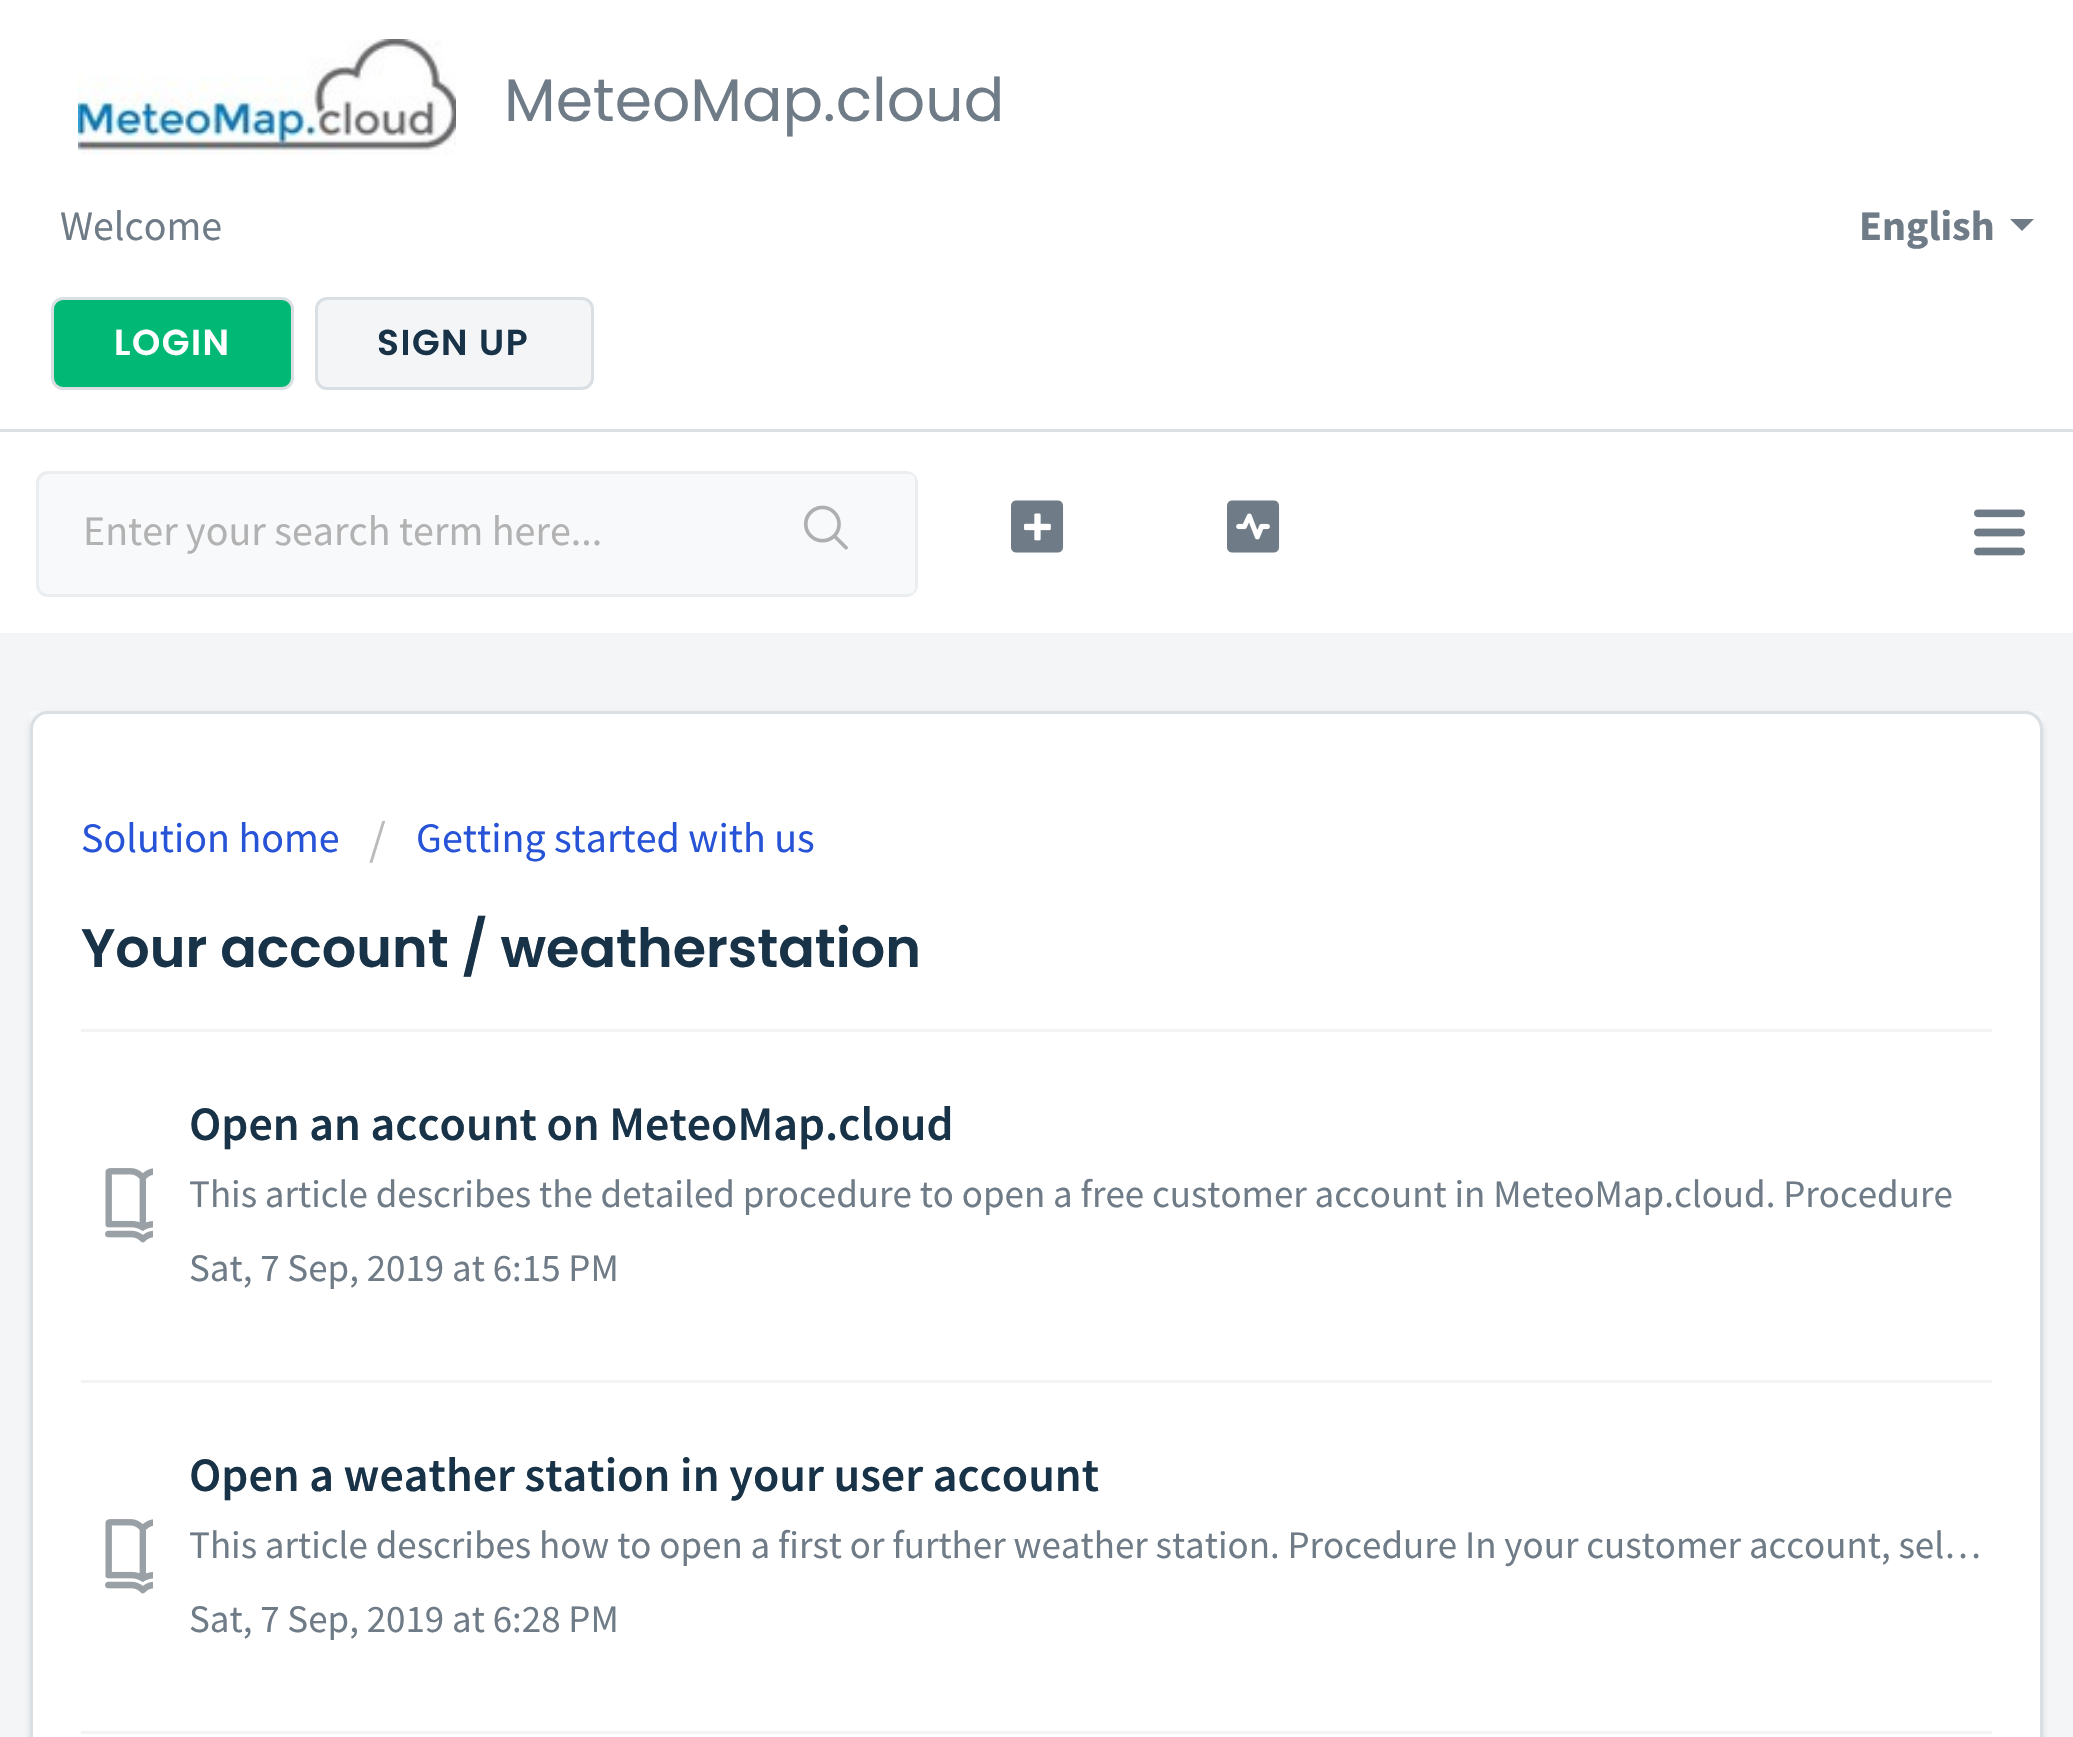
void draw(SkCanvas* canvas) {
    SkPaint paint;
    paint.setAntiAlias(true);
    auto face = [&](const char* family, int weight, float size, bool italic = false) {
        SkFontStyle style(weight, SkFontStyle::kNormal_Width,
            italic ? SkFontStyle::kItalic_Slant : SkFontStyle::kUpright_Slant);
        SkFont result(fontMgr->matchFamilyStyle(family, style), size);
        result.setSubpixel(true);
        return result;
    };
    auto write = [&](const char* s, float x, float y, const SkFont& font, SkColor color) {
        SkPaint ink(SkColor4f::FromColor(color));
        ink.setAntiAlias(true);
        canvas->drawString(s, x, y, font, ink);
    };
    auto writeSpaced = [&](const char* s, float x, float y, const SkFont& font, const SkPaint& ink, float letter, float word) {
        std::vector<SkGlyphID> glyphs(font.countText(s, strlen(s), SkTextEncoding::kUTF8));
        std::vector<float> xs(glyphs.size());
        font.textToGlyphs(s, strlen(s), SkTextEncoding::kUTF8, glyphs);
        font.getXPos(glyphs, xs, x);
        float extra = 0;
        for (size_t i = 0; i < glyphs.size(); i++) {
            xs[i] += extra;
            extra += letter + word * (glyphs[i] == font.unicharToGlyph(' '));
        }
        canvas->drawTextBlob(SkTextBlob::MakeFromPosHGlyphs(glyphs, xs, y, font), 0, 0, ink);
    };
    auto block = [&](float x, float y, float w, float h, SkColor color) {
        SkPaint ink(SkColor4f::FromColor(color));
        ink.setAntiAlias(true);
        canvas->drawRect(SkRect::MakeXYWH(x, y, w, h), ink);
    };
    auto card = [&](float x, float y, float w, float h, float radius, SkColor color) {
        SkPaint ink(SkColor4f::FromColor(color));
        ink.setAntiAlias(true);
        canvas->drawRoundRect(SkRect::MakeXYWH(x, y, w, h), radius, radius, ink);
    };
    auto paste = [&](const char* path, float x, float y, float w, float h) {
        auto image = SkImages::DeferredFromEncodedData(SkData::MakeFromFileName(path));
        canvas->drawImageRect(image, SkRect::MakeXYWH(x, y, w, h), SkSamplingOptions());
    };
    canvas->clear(SkColorSetRGB(243, 245, 247));
    block(0, 0, 2073, 429, SK_ColorWHITE);
    block(0, 429, 2073, 3, SkColorSetRGB(218, 223, 227));
    paste("pic1.png", 78, 39, 378, 116);
    auto kFont1 = face("Poppins", 400, 60);
    write("MeteoMap.cloud", 504, 121, kFont1, SkColorSetRGB(111, 124, 135));
    auto kFont2 = face("Source Sans Pro", 400, 42);
    write("Welcome", 60, 240, kFont2, SkColorSetRGB(111, 124, 135));
    auto kFont3 = face("Source Sans Pro", 700, 42);
    write("English", 1859, 240, kFont3, SkColorSetRGB(111, 124, 135));
    paint.setColor(SkColorSetRGB(111, 124, 135));
    canvas->drawPath(SkPathBuilder().moveTo(2010, 219).lineTo(2034, 219).lineTo(2022, 231).close().detach(), paint);
    paint.setColor(SkColorSetRGB(2, 184, 117));
    canvas->drawRoundRect(SkRect::MakeXYWH(52.5f, 298.5f, 240, 90), 10.5f, 10.5f, paint);
    paint.setStyle(SkPaint::kStroke_Style);
    paint.setStrokeWidth(3);
    paint.setColor(SkColorSetRGB(218, 223, 227));
    canvas->drawRoundRect(SkRect::MakeXYWH(52.5f, 298.5f, 240, 90), 10.5f, 10.5f, paint);
    auto kFont4 = face("Poppins", 600, 36);
    paint.setStyle(SkPaint::kFill_Style);
    paint.setColor(SK_ColorWHITE);
    writeSpaced("LOGIN", 114, 355, kFont4, paint, 1.5f, 0);
    paint.setColor(SkColorSetRGB(243, 245, 247));
    canvas->drawRoundRect(SkRect::MakeXYWH(316.5f, 298.5f, 276, 90), 10.5f, 10.5f, paint);
    paint.setStyle(SkPaint::kStroke_Style);
    paint.setColor(SkColorSetRGB(218, 223, 227));
    canvas->drawRoundRect(SkRect::MakeXYWH(316.5f, 298.5f, 276, 90), 10.5f, 10.5f, paint);
    paint.setStyle(SkPaint::kFill_Style);
    paint.setColor(SkColorSetRGB(24, 50, 71));
    writeSpaced("SIGN UP", 377, 355, kFont4, paint, 1.5f, 0);
    block(0, 432, 2073, 201, SK_ColorWHITE);
    paste("pic2.png", 1974, 509, 51, 47);
    paint.setColor(SkColorSetRGB(248, 249, 250));
    canvas->drawRoundRect(SkRect::MakeXYWH(37.5f, 472.5f, 879, 123), 10.5f, 10.5f, paint);
    paint.setStyle(SkPaint::kStroke_Style);
    paint.setColor(SkColorSetRGB(235, 238, 240));
    canvas->drawRoundRect(SkRect::MakeXYWH(37.5f, 472.5f, 879, 123), 10.5f, 10.5f, paint);
    write("Enter your search term here...", 83, 545, kFont2, SkColorSetRGB(178, 178, 178));
    card(738, 474, 177, 120, 6, SkColorSetRGB(248, 249, 250));
    paste("pic3.png", 804, 505, 44, 45);
    paste("pic4.png", 1011, 500, 53, 53);
    paste("pic5.png", 1227, 500, 53, 53);
    block(30, 711, 2013, 18, SkColorSetRGB(248, 249, 250));
    paint.setStyle(SkPaint::kFill_Style);
    paint.setColor(SkColorSetARGB(38, 63, 63, 68));
    paint.setMaskFilter(SkMaskFilter::MakeBlur(kNormal_SkBlurStyle, 3));
    canvas->drawRoundRect(SkRect::MakeXYWH(30, 714, 2013, 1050), 18, 18, paint);
    paint.setMaskFilter(nullptr);
    paint.setColor(SK_ColorWHITE);
    canvas->drawRoundRect(SkRect::MakeXYWH(31.5f, 712.5f, 2010, 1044), 16.5f, 16.5f, paint);
    paint.setStyle(SkPaint::kStroke_Style);
    paint.setColor(SkColorSetRGB(218, 223, 227));
    canvas->drawRoundRect(SkRect::MakeXYWH(31.5f, 712.5f, 2010, 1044), 16.5f, 16.5f, paint);
    write("Solution home", 81, 852, kFont2, SkColorSetRGB(39, 83, 215));
    auto kFont5 = face("Source Sans Pro", 400, 48);
    write("/", 369, 855, kFont5, SkColorSetRGB(187, 187, 187));
    write("Getting started with us", 416, 852, kFont2, SkColorSetRGB(39, 83, 215));
    auto kFont6 = face("Poppins", 600, 54);
    write("Your account / weatherstation", 81, 967, kFont6, SkColorSetRGB(24, 50, 71));
    block(81, 1731, 1911, 3, SkColorSetRGB(243, 243, 243));
    block(81, 1029, 1911, 3, SkColorSetRGB(243, 243, 243));
    auto kFont7 = face("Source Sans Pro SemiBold", 600, 48);
    write("Open an account on MeteoMap.cloud", 189, 1140, kFont7, SkColorSetRGB(24, 50, 71));
    paste("pic6.png", 105, 1168, 48, 75);
    auto kFont8 = face("Source Sans Pro", 400, 39);
    write("This article describes the detailed procedure to open a free customer account in MeteoMap.cloud. Procedure", 189, 1207, kFont8, SkColorSetRGB(111, 124, 135));
    write("Sat, 7 Sep, 2019 at 6:15 PM", 189, 1281, kFont8, SkColorSetRGB(111, 124, 135));
    block(81, 1380, 1911, 3, SkColorSetRGB(243, 243, 243));
    write("Open a weather station in your user account", 189, 1491, kFont7, SkColorSetRGB(24, 50, 71));
    paste("pic6.png", 105, 1519, 48, 75);
    write("This article describes how to open a first or further weather station. Procedure In your customer account, sel…", 189, 1558, kFont8, SkColorSetRGB(111, 124, 135));
    write("Sat, 7 Sep, 2019 at 6:28 PM", 189, 1632, kFont8, SkColorSetRGB(111, 124, 135));
}
